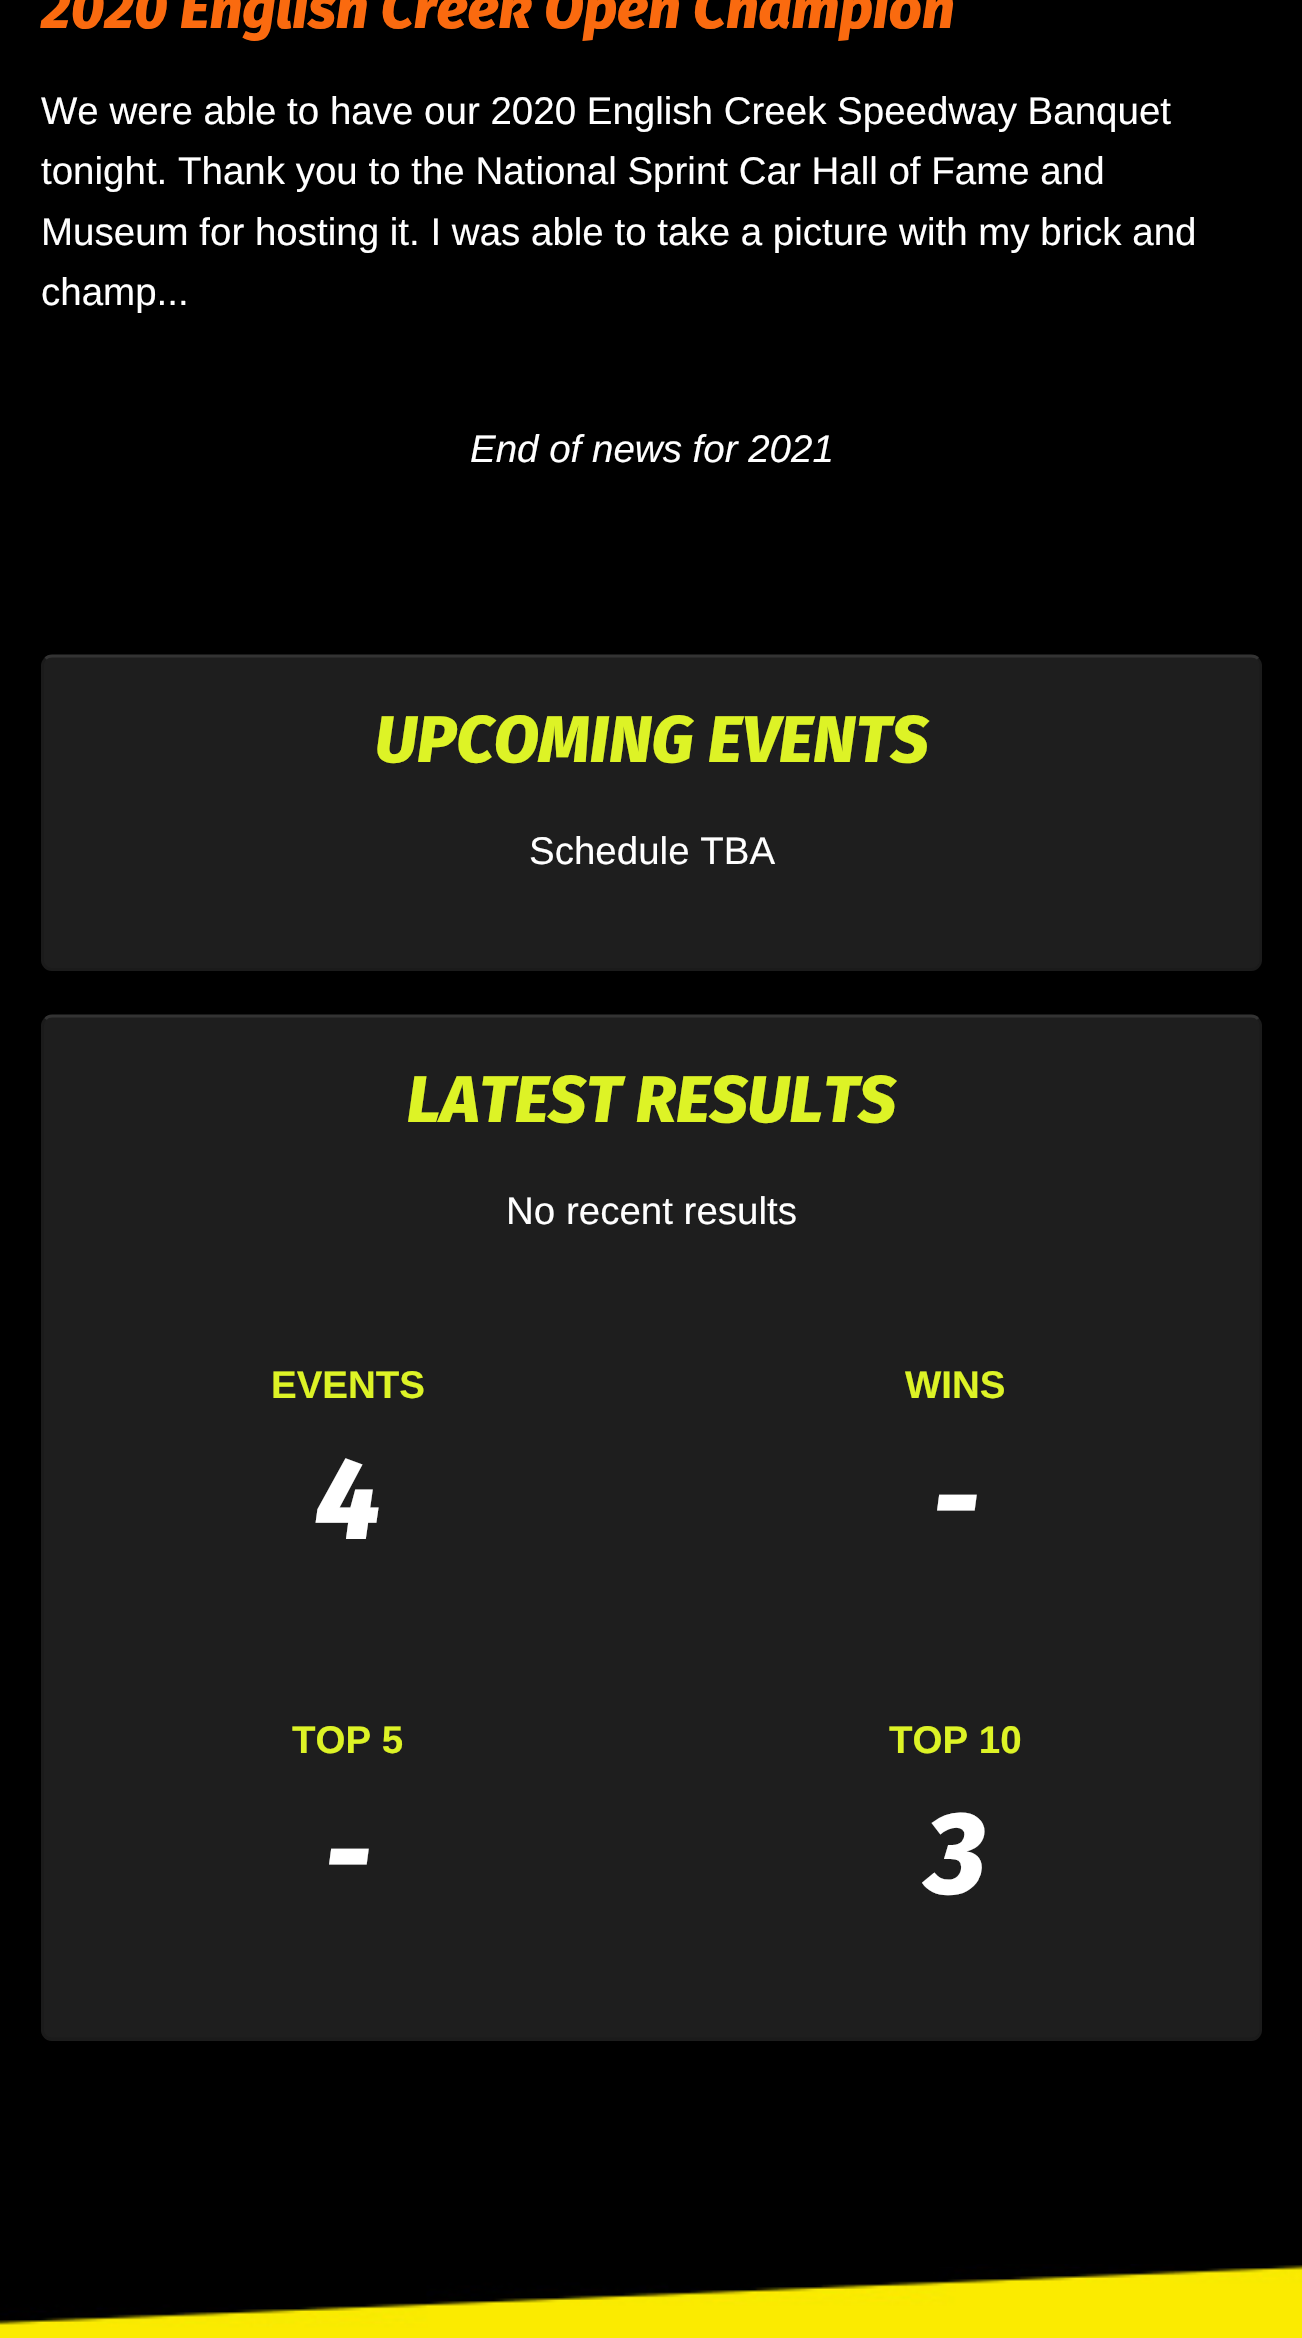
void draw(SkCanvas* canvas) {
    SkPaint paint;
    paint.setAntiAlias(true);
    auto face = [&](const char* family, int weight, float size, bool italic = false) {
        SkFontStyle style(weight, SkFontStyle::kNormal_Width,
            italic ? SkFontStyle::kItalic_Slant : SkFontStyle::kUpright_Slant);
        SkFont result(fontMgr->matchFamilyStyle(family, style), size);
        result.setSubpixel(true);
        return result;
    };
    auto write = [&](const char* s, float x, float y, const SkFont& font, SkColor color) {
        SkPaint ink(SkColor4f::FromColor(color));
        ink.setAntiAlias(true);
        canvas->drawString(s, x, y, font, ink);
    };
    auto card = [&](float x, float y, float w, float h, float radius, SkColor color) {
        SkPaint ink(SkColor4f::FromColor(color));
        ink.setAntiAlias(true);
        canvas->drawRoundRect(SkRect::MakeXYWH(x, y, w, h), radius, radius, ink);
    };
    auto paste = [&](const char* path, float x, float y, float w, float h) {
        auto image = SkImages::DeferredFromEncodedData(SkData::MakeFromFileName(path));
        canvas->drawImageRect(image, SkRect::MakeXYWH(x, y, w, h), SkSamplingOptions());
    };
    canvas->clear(SK_ColorBLACK);
    auto kFont1 = face("Fira Sans", 800, 57.75f, true);
    write("2020 English Creek Open Champion", 41, 28, kFont1, SkColorSetRGB(250, 106, 15));
    auto kFont2 = face("Liberation Sans", 400, 38.5f);
    write("We were able to have our 2020 English Creek Speedway Banquet", 41, 124, kFont2, SK_ColorWHITE);
    write("tonight. Thank you to the National Sprint Car Hall of Fame and", 41, 184, kFont2, SK_ColorWHITE);
    write("Museum for hosting it. I was able to take a picture with my brick and", 41, 245, kFont2, SK_ColorWHITE);
    write("champ...", 41, 305, kFont2, SK_ColorWHITE);
    auto kFont3 = face("Liberation Sans", 400, 38.5f, true);
    write("End of news for 2021", 470, 462, kFont3, SK_ColorWHITE);
    card(41, 655, 1221, 316, 11, SkColorSetRGB(30, 30, 30));
    paint.setStyle(SkPaint::kStroke_Style);
    paint.setStrokeWidth(2.8f);
    paint.setColor(SkColorSetRGB(51, 51, 51));
    canvas->drawPath(SkPathBuilder().moveTo(45.5f, 658.5f).cubicTo(47, 657, 49.5f, 656, 52, 656).lineTo(1251, 656).cubicTo(1254, 656, 1256.5f, 657, 1258, 658.5f).detach(), paint);
    paint.setColor(SkColorSetARGB(31, 0, 0, 0));
    canvas->drawPath(SkPathBuilder().moveTo(1258, 658.5f).cubicTo(1260, 660.5f, 1261, 663, 1261, 665.5f).lineTo(1261, 960).cubicTo(1261, 962.5f, 1260, 965, 1258, 966.5f).cubicTo(1256.5f, 968.5f, 1254, 969.5f, 1251, 969.5f).lineTo(52, 969.5f).cubicTo(49.5f, 969.5f, 47, 968.5f, 45.5f, 966.5f).cubicTo(43.5f, 965, 42.5f, 962.5f, 42.5f, 960).lineTo(42.5f, 665.5f).cubicTo(42.5f, 663, 43.5f, 660.5f, 45.5f, 658.5f).detach(), paint);
    auto kFont4 = face("Fira Sans", 800, 66, true);
    write("UPCOMING EVENTS", 375, 762, kFont4, SkColorSetRGB(221, 243, 38));
    write("Schedule TBA", 529, 864, kFont2, SK_ColorWHITE);
    card(41, 1015, 1221, 1026, 11, SkColorSetRGB(30, 30, 30));
    paint.setColor(SkColorSetRGB(51, 51, 51));
    canvas->drawPath(SkPathBuilder().moveTo(45.5f, 1019).cubicTo(47, 1017, 49.5f, 1016, 52, 1016).lineTo(1251, 1016).cubicTo(1254, 1016, 1256.5f, 1017, 1258, 1019).detach(), paint);
    paint.setColor(SkColorSetARGB(31, 0, 0, 0));
    canvas->drawPath(SkPathBuilder().moveTo(1258, 1019).cubicTo(1260, 1020.5f, 1261, 1023, 1261, 1026).lineTo(1261, 2029.5f).cubicTo(1261, 2032, 1260, 2034.5f, 1258, 2036.5f).cubicTo(1256.5f, 2038, 1254, 2039, 1251, 2039).lineTo(52, 2039).cubicTo(49.5f, 2039, 47, 2038, 45.5f, 2036.5f).cubicTo(43.5f, 2034.5f, 42.5f, 2032, 42.5f, 2029.5f).lineTo(42.5f, 1026).cubicTo(42.5f, 1023, 43.5f, 1020.5f, 45.5f, 1019).detach(), paint);
    write("LATEST RESULTS", 407, 1122, kFont4, SkColorSetRGB(221, 243, 38));
    write("No recent results", 506, 1224, kFont2, SK_ColorWHITE);
    auto kFont5 = face("Liberation Sans", 700, 38.5f);
    write("EVENTS", 271, 1398, kFont5, SkColorSetRGB(221, 243, 38));
    auto kFont6 = face("Fira Sans", 800, 116, true);
    write("4", 315, 1539, kFont6, SK_ColorWHITE);
    write("WINS", 905, 1398, kFont5, SkColorSetRGB(221, 243, 38));
    write("-", 933, 1539, kFont6, SK_ColorWHITE);
    write("TOP 5", 292, 1753, kFont5, SkColorSetRGB(221, 243, 38));
    write("-", 325, 1893, kFont6, SK_ColorWHITE);
    write("TOP 10", 889, 1753, kFont5, SkColorSetRGB(221, 243, 38));
    write("3", 926, 1893, kFont6, SK_ColorWHITE);
    paste("pic1.png", 0, 2264, 1302, 74);
}
